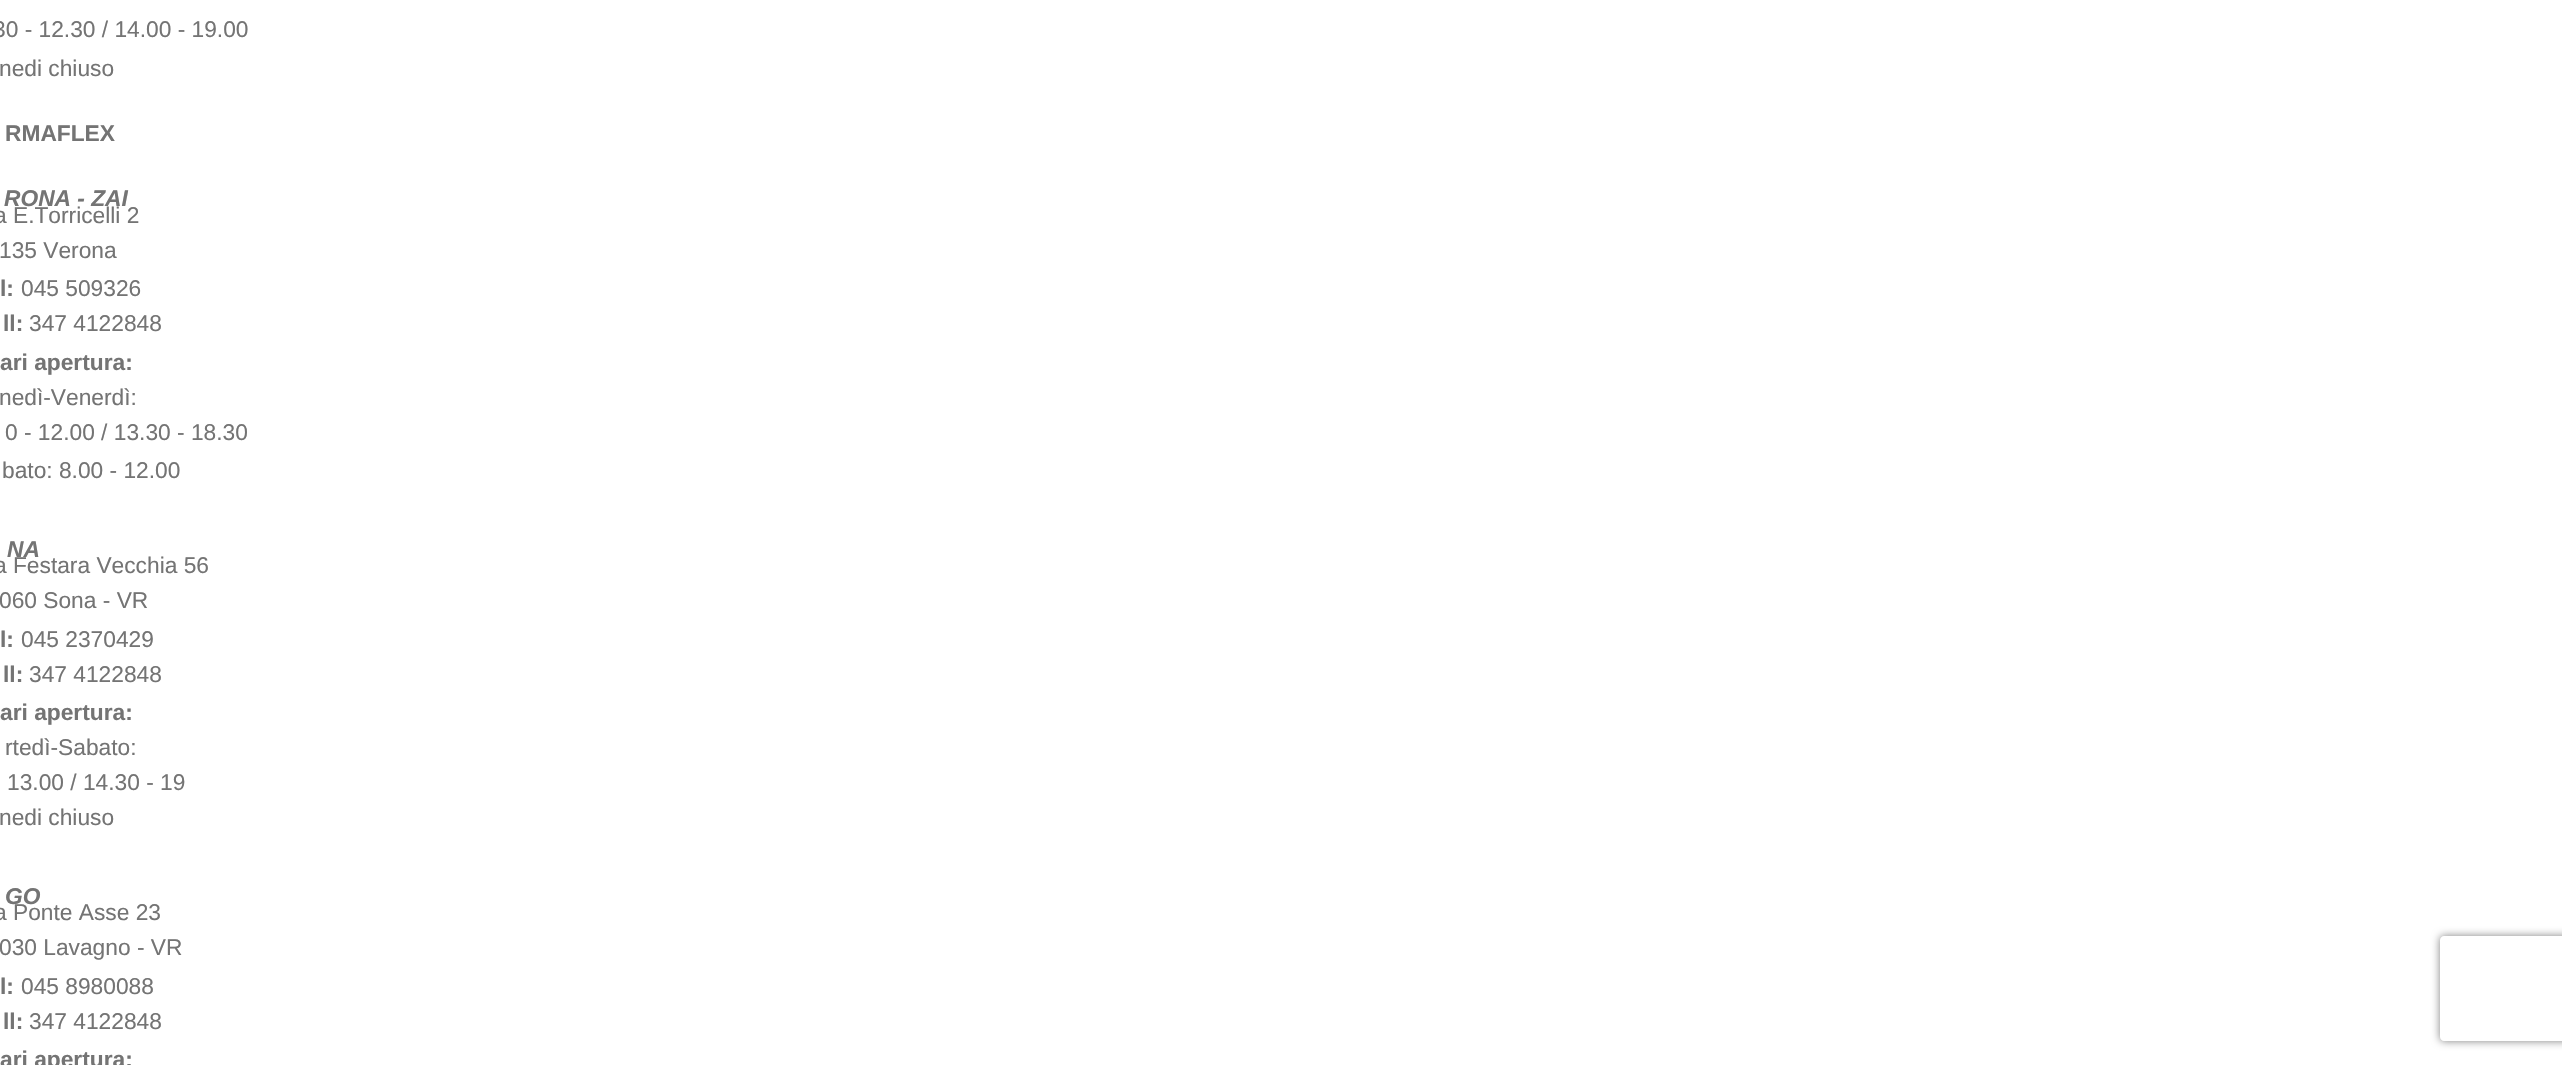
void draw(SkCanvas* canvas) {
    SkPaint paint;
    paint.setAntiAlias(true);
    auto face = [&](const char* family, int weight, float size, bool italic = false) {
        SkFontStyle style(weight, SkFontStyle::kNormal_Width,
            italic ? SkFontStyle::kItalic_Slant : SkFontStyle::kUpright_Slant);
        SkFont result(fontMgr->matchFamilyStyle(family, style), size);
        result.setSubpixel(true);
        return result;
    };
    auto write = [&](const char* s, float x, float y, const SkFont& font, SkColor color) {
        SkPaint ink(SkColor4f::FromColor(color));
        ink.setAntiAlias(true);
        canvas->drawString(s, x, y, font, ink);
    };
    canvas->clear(SK_ColorWHITE);
    auto kFont1 = face("Liberation Sans", 400, 22.75f);
    write("30 - 12.30 / 14.00 - 19.00", -7, 37, kFont1, SkColorSetRGB(116, 116, 116));
    write("nedi chiuso", -1, 76, kFont1, SkColorSetRGB(116, 116, 116));
    auto kFont2 = face("Liberation Sans", 700, 22.75f);
    write("RMAFLEX", 5, 141, kFont2, SkColorSetRGB(116, 116, 116));
    auto kFont3 = face("Liberation Sans", 700, 22.75f, true);
    write("RONA - ZAI", 4, 206, kFont3, SkColorSetRGB(116, 116, 116));
    write("a E.Torricelli 2", -6, 223, kFont1, SkColorSetRGB(116, 116, 116));
    write("135 Verona", -1, 258, kFont1, SkColorSetRGB(116, 116, 116));
    write("l:", 0, 296, kFont2, SkColorSetRGB(116, 116, 116));
    write("045 509326", 21, 296, kFont1, SkColorSetRGB(116, 116, 116));
    write("ll:", 3, 331, kFont2, SkColorSetRGB(116, 116, 116));
    write("347 4122848", 29, 331, kFont1, SkColorSetRGB(116, 116, 116));
    write("ari apertura:", 0, 370, kFont2, SkColorSetRGB(116, 116, 116));
    write("nedì-Venerdì:", -1, 405, kFont1, SkColorSetRGB(116, 116, 116));
    write("0 - 12.00 / 13.30 - 18.30", 5, 440, kFont1, SkColorSetRGB(116, 116, 116));
    write("bato: 8.00 - 12.00", 2, 478, kFont1, SkColorSetRGB(116, 116, 116));
    write("NA", 7, 557, kFont3, SkColorSetRGB(116, 116, 116));
    write("a Festara Vecchia 56", -6, 573, kFont1, SkColorSetRGB(116, 116, 116));
    write("060 Sona - VR", -1, 608, kFont1, SkColorSetRGB(116, 116, 116));
    write("l:", 0, 647, kFont2, SkColorSetRGB(116, 116, 116));
    write("045 2370429", 21, 647, kFont1, SkColorSetRGB(116, 116, 116));
    write("ll:", 3, 682, kFont2, SkColorSetRGB(116, 116, 116));
    write("347 4122848", 29, 682, kFont1, SkColorSetRGB(116, 116, 116));
    write("ari apertura:", 0, 720, kFont2, SkColorSetRGB(116, 116, 116));
    write("rtedì-Sabato:", 5, 755, kFont1, SkColorSetRGB(116, 116, 116));
    write("13.00 / 14.30 - 19", 7, 790, kFont1, SkColorSetRGB(116, 116, 116));
    write("nedi chiuso", -1, 825, kFont1, SkColorSetRGB(116, 116, 116));
    write("GO", 5, 904, kFont3, SkColorSetRGB(116, 116, 116));
    write("a Ponte Asse 23", -6, 920, kFont1, SkColorSetRGB(116, 116, 116));
    write("030 Lavagno - VR", -1, 955, kFont1, SkColorSetRGB(116, 116, 116));
    write("l:", 0, 994, kFont2, SkColorSetRGB(116, 116, 116));
    write("045 8980088", 21, 994, kFont1, SkColorSetRGB(116, 116, 116));
    write("ll:", 3, 1029, kFont2, SkColorSetRGB(116, 116, 116));
    write("347 4122848", 29, 1029, kFont1, SkColorSetRGB(116, 116, 116));
    write("ari apertura:", 0, 1067, kFont2, SkColorSetRGB(116, 116, 116));
    canvas->save();
    canvas->clipPath(SkPathBuilder(SkPathFillType::kEvenOdd).moveTo(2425, 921).lineTo(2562, 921).lineTo(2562, 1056).lineTo(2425, 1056).close().moveTo(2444, 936).lineTo(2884, 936).cubicTo(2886, 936, 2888, 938, 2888, 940).lineTo(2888, 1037).cubicTo(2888, 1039, 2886, 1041, 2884, 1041).lineTo(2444, 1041).cubicTo(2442, 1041, 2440, 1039, 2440, 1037).lineTo(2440, 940).cubicTo(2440, 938, 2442, 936, 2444, 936).close().detach(), true);
    paint.setColor(SkColorSetRGB(128, 128, 128));
    paint.setMaskFilter(SkMaskFilter::MakeBlur(kNormal_SkBlurStyle, 4.5f));
    canvas->drawRoundRect(SkRect::MakeXYWH(2440, 936, 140, 105), 4, 4, paint);
    paint.setMaskFilter(nullptr);
    canvas->restore();
}
